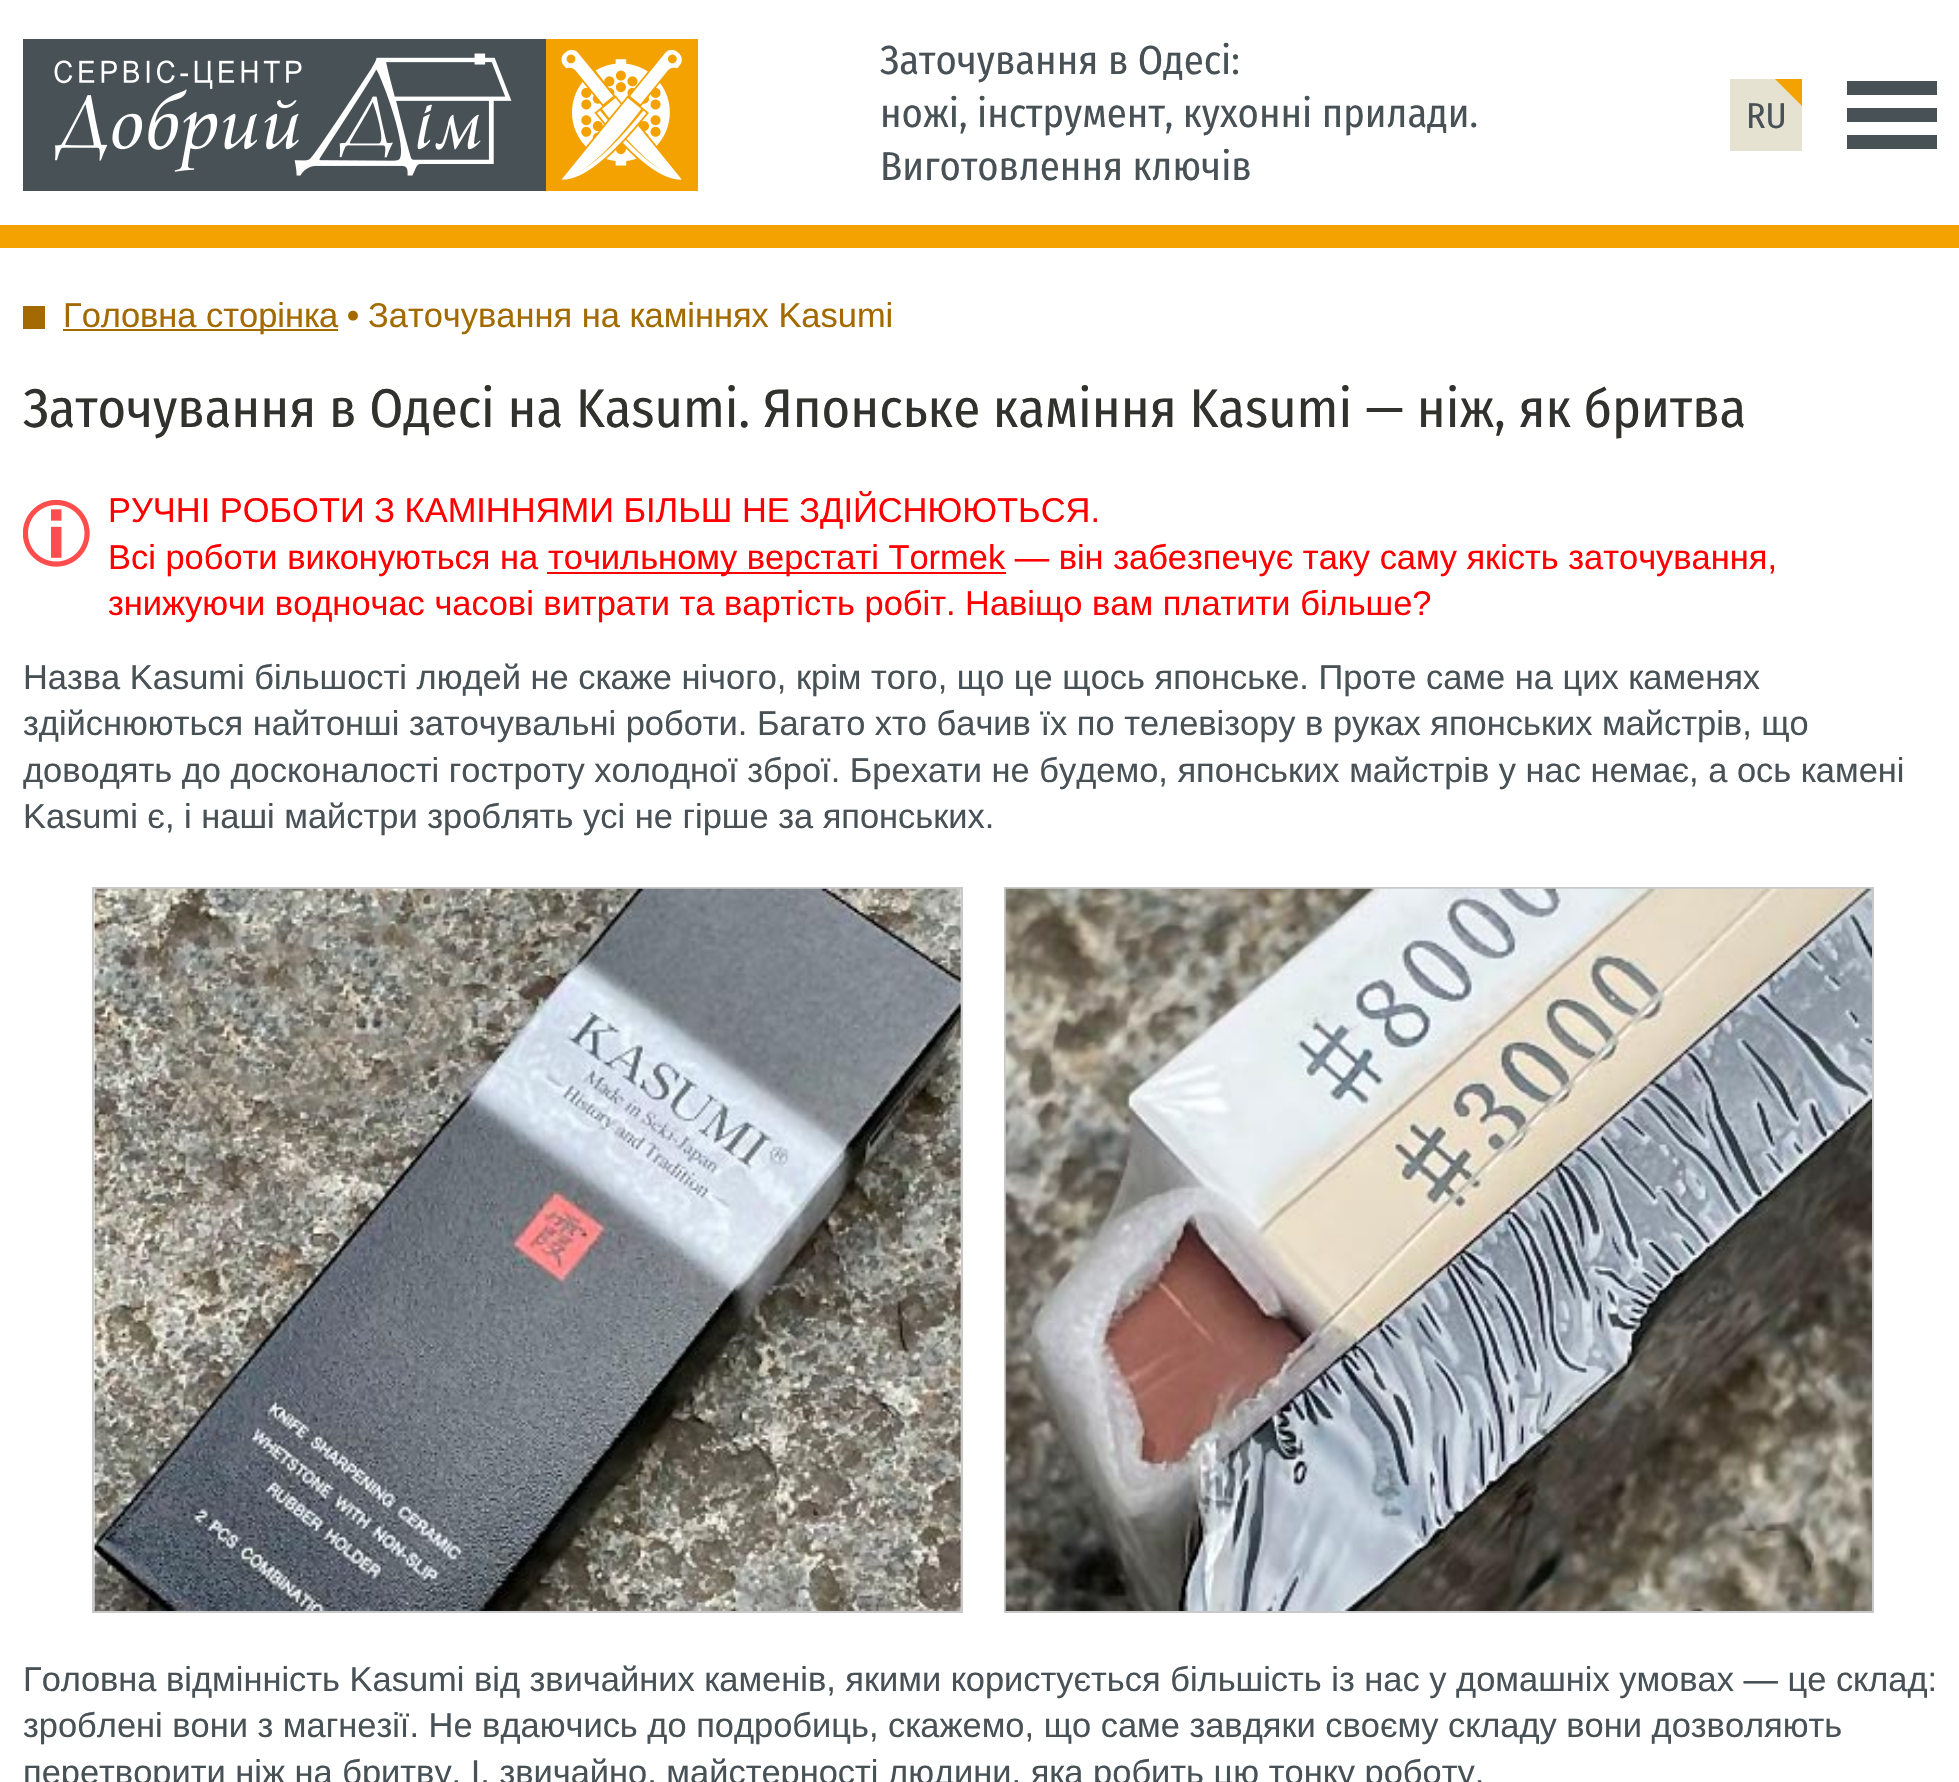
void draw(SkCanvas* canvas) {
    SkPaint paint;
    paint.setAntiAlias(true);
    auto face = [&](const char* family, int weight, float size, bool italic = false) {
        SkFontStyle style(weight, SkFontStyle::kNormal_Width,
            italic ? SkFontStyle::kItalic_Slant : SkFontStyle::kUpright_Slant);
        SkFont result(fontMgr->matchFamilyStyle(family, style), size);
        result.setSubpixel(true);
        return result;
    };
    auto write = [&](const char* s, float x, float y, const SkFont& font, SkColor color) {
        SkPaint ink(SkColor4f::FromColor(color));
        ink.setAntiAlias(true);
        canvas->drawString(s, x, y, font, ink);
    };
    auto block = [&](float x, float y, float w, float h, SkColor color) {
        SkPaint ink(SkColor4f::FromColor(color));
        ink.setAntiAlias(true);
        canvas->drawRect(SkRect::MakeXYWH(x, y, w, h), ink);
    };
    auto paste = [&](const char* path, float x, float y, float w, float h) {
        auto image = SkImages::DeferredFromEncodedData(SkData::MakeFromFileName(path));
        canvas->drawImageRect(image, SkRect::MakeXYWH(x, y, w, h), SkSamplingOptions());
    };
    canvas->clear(SK_ColorWHITE);
    paste("pic1.png", 23, 39, 675, 152);
    auto kFont1 = face("Fira Sans Condensed", 400, 40.5f);
    write("Заточування в Одесі:", 880, 74, kFont1, SkColorSetRGB(72, 81, 86));
    write("ножі, інструмент, кухонні прилади.", 880, 127, kFont1, SkColorSetRGB(72, 81, 86));
    write("Виготовлення ключів", 880, 180, kFont1, SkColorSetRGB(72, 81, 86));
    block(1730, 79, 72, 72, SkColorSetRGB(230, 226, 210));
    auto kFont2 = face("Fira Sans Condensed", 400, 36);
    write("RU", 1746, 128, kFont2, SkColorSetRGB(72, 81, 86));
    paint.setColor(SkColorSetRGB(244, 161, 2));
    canvas->drawPath(SkPathBuilder().moveTo(1802, 79).lineTo(1802, 106).lineTo(1775, 79).close().detach(), paint);
    block(1847, 81, 90, 14, SkColorSetRGB(72, 81, 86));
    block(1847, 108, 90, 14, SkColorSetRGB(72, 81, 86));
    block(1847, 135, 90, 14, SkColorSetRGB(72, 81, 86));
    block(0, 225, 1959, 23, SkColorSetRGB(244, 161, 2));
    block(23, 306, 22, 23, SkColorSetRGB(162, 106, 0));
    block(63, 329, 275, 2, SkColorSetRGB(162, 106, 0));
    auto kFont3 = face("Liberation Sans", 400, 34.43f);
    write("Головна сторінка", 63, 327, kFont3, SkColorSetRGB(162, 106, 0));
    auto kFont4 = face("Liberation Sans", 700, 34.43f);
    write("•", 347, 327, kFont4, SkColorSetRGB(162, 106, 0));
    write("Заточування на каміннях Kasumi", 368, 327, kFont3, SkColorSetRGB(162, 106, 0));
    auto kFont5 = face("Fira Sans Condensed", 400, 54.4f);
    write("Заточування в Одесі на Kasumi. Японське каміння Kasumi — ніж, як бритва", 23, 427, kFont5, SkColorSetRGB(49, 49, 45));
    paste("pic2.png", 23, 500, 67, 67);
    write("РУЧНІ РОБОТИ З КАМІННЯМИ БІЛЬШ НЕ ЗДІЙСНЮЮТЬСЯ.", 108, 522, kFont3, SkColorSetRGB(255, 0, 0));
    write("Всі роботи виконуються на", 108, 569, kFont3, SkColorSetRGB(255, 0, 0));
    block(547, 572, 459, 2, SkColorSetRGB(255, 0, 0));
    write("точильному верстаті Tormek — він забезпечує таку саму якість заточування,", 548, 569, kFont3, SkColorSetRGB(255, 0, 0));
    write("знижуючи водночас часові витрати та вартість робіт. Навіщо вам платити більше?", 108, 615, kFont3, SkColorSetRGB(255, 0, 0));
    write("Назва Kasumi більшості людей не скаже нічого, крім того, що це щось японське. Проте саме на цих каменях", 23, 689, kFont3, SkColorSetRGB(72, 81, 86));
    write("здійснюються найтонші заточувальні роботи. Багато хто бачив їх по телевізору в руках японських майстрів, що", 23, 735, kFont3, SkColorSetRGB(72, 81, 86));
    write("доводять до досконалості гостроту холодної зброї. Брехати не будемо, японських майстрів у нас немає, а ось камені", 23, 782, kFont3, SkColorSetRGB(72, 81, 86));
    write("Kasumi є, і наші майстри зроблять усі не гірше за японських.", 23, 828, kFont3, SkColorSetRGB(72, 81, 86));
    paint.setStyle(SkPaint::kStroke_Style);
    paint.setStrokeWidth(2);
    paint.setColor(SkColorSetRGB(201, 200, 200));
    canvas->drawRect(SkRect::MakeXYWH(93, 888, 869, 724), paint);
    paste("pic3.png", 94, 888, 867, 723);
    canvas->drawRect(SkRect::MakeXYWH(1005, 888, 868, 724), paint);
    paste("pic4.png", 1005, 888, 867, 723);
    write("Головна відмінність Kasumi від звичайних каменів, якими користується більшість із нас у домашніх умовах — це склад:", 23, 1691, kFont3, SkColorSetRGB(72, 81, 86));
    write("зроблені вони з магнезії. Не вдаючись до подробиць, скажемо, що саме завдяки своєму складу вони дозволяють", 23, 1737, kFont3, SkColorSetRGB(72, 81, 86));
    write("перетворити ніж на бритву. І, звичайно, майстерності людини, яка робить цю тонку роботу.", 23, 1784, kFont3, SkColorSetRGB(72, 81, 86));
}
